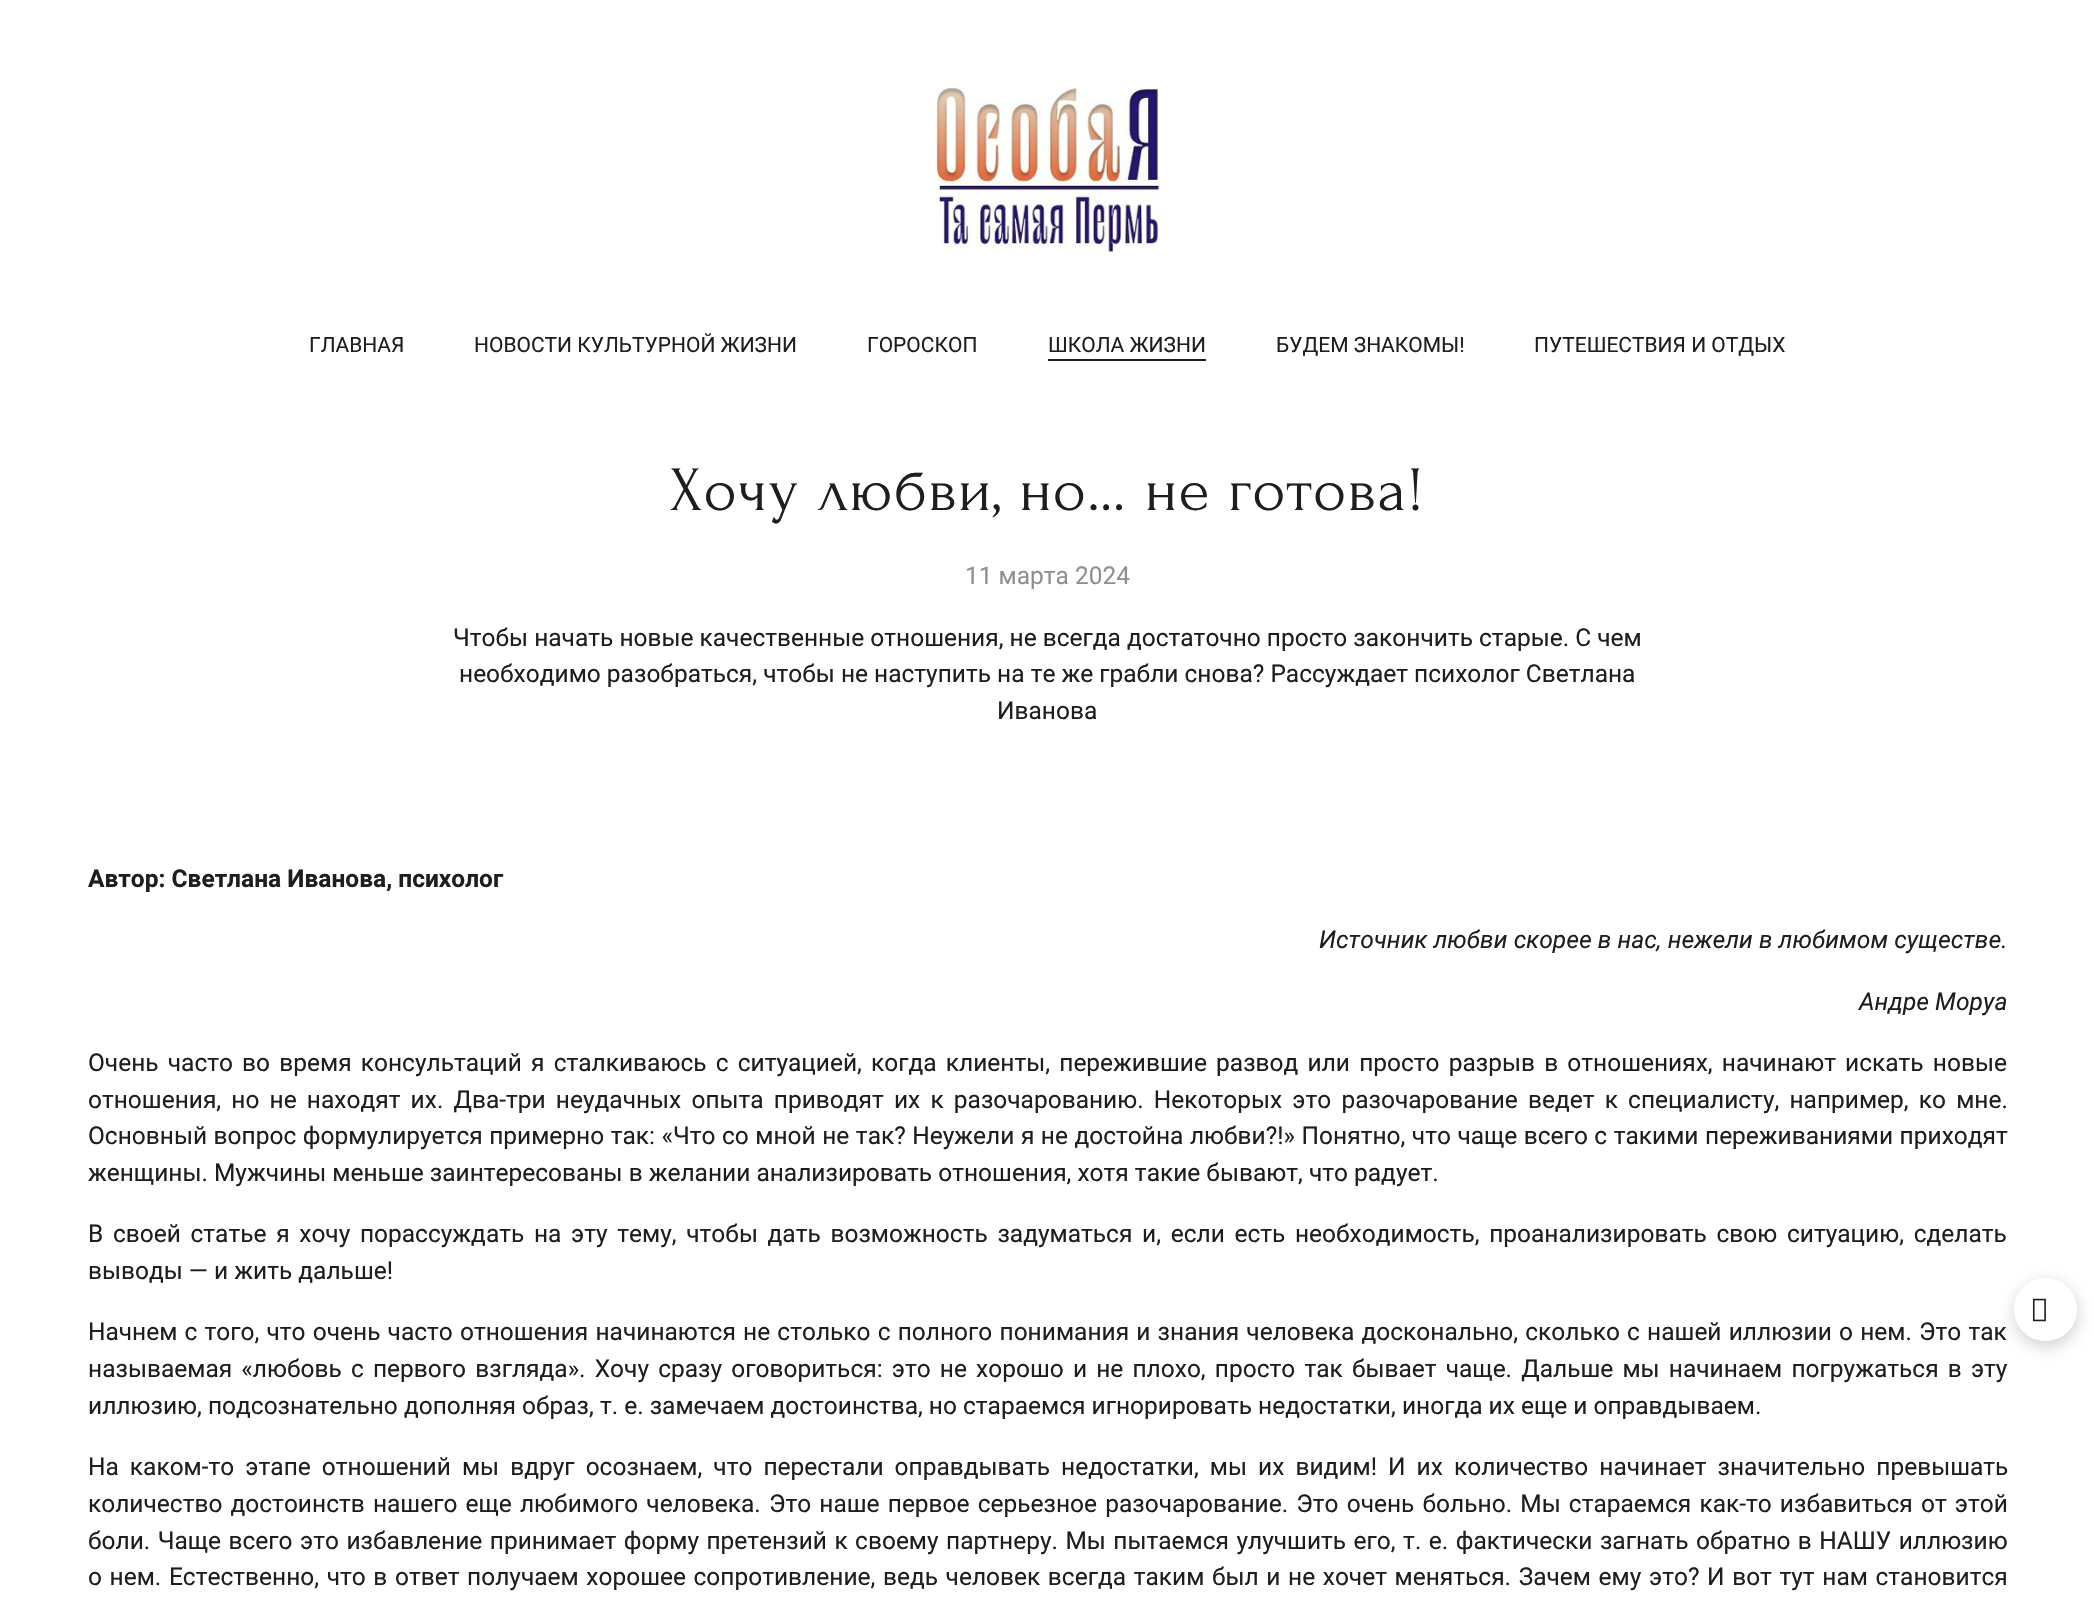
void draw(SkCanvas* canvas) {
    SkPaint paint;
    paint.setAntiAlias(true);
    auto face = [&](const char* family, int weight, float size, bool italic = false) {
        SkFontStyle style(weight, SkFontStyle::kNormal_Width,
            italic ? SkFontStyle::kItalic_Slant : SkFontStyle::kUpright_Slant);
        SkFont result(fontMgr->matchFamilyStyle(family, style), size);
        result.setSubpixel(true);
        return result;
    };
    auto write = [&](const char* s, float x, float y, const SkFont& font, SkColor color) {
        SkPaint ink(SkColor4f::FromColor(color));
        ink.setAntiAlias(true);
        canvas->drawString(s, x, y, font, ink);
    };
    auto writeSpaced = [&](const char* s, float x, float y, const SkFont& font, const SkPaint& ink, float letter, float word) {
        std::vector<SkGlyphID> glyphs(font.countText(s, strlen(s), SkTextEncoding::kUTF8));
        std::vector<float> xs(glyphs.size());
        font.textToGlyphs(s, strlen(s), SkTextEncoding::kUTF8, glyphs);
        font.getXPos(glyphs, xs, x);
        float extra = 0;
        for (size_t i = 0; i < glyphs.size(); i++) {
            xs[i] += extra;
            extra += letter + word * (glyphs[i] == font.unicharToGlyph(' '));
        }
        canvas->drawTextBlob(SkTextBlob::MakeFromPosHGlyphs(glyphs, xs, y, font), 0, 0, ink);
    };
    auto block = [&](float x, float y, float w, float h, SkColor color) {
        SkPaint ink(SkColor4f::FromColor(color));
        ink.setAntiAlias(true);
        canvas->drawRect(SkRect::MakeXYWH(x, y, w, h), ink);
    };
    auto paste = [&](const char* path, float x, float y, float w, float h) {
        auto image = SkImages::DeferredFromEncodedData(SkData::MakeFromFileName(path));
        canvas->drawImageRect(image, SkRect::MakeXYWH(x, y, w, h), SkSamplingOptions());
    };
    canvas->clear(SK_ColorWHITE);
    paste("pic1.png", 936, 87, 223, 165);
    auto kFont1 = face("Roboto", 400, 21);
    write("ГЛАВНАЯ", 309, 352, kFont1, SkColorSetRGB(30, 30, 30));
    write("НОВОСТИ КУЛЬТУРНОЙ ЖИЗНИ", 474, 352, kFont1, SkColorSetRGB(30, 30, 30));
    write("ГОРОСКОП", 867, 352, kFont1, SkColorSetRGB(30, 30, 30));
    write("ШКОЛА ЖИЗНИ", 1048, 352, kFont1, SkColorSetRGB(30, 30, 30));
    block(1048, 359, 158, 2, SkColorSetRGB(30, 30, 30));
    write("БУДЕМ ЗНАКОМЫ!", 1276, 352, kFont1, SkColorSetRGB(30, 30, 30));
    write("ПУТЕШЕСТВИЯ И ОТДЫХ", 1534, 352, kFont1, SkColorSetRGB(30, 30, 30));
    auto kFont2 = face("Forum", 400, 63);
    paint.setColor(SkColorSetRGB(30, 30, 30));
    writeSpaced("Хочу любви, но… не готова!", 670, 510, kFont2, paint, 1.25f, 0);
    auto kFont3 = face("Roboto", 400, 24.5f);
    write("11 марта 2024", 965, 584, kFont3, SkColorSetRGB(143, 143, 143));
    write("Чтобы начать новые качественные отношения, не всегда достаточно просто закончить старые. С чем", 453, 646, kFont3, SkColorSetRGB(30, 30, 30));
    write("необходимо разобраться, чтобы не наступить на те же грабли снова? Рассуждает психолог Светлана", 459, 682, kFont3, SkColorSetRGB(30, 30, 30));
    write("Иванова", 997, 719, kFont3, SkColorSetRGB(30, 30, 30));
    auto kFont4 = face("Roboto", 700, 24.5f);
    write("Автор: Светлана Иванова, психолог", 88, 887, kFont4, SkColorSetRGB(30, 30, 30));
    auto kFont5 = face("Roboto", 400, 24.5f, true);
    write("Источник любви скорее в нас, нежели в любимом существе.", 1319, 948, kFont5, SkColorSetRGB(30, 30, 30));
    write("Андре Моруа", 1859, 1010, kFont5, SkColorSetRGB(30, 30, 30));
    writeSpaced("Очень часто во время консультаций я сталкиваюсь с ситуацией, когда клиенты, пережившие развод или просто разрыв в отношениях, начинают искать новые", 88, 1071, kFont3, paint, 0, 3.1f);
    writeSpaced("отношения, но не находят их. Два-три неудачных опыта приводят их к разочарованию. Некоторых это разочарование ведет к специалисту, например, ко мне.", 88, 1108, kFont3, paint, 0, 4.1f);
    writeSpaced("Основный вопрос формулируется примерно так: «Что со мной не так? Неужели я не достойна любви?!» Понятно, что чаще всего с такими переживаниями приходят", 88, 1144, kFont3, paint, 0, 0.45f);
    write("женщины. Мужчины меньше заинтересованы в желании анализировать отношения, хотя такие бывают, что радует.", 88, 1181, kFont3, SkColorSetRGB(30, 30, 30));
    writeSpaced("В своей статье я хочу порассуждать на эту тему, чтобы дать возможность задуматься и, если есть необходимость, проанализировать свою ситуацию, сделать", 88, 1242, kFont3, paint, 0, 3.6f);
    write("выводы — и жить дальше!", 88, 1279, kFont3, SkColorSetRGB(30, 30, 30));
    writeSpaced("Начнем с того, что очень часто отношения начинаются не столько с полного понимания и знания человека досконально, сколько с нашей иллюзии о нем. Это так", 88, 1340, kFont3, paint, 0, 1.1f);
    writeSpaced("называемая «любовь с первого взгляда». Хочу сразу оговориться: это не хорошо и не плохо, просто так бывает чаще. Дальше мы начинаем погружаться в эту", 88, 1377, kFont3, paint, 0, 3.1f);
    write("иллюзию, подсознательно дополняя образ, т. е. замечаем достоинства, но стараемся игнорировать недостатки, иногда их еще и оправдываем.", 88, 1414, kFont3, SkColorSetRGB(30, 30, 30));
    writeSpaced("На каком-то этапе отношений мы вдруг осознаем, что перестали оправдывать недостатки, мы их видим! И их количество начинает значительно превышать", 88, 1475, kFont3, paint, 0, 5);
    writeSpaced("количество достоинств нашего еще любимого человека. Это наше первое серьезное разочарование. Это очень больно. Мы стараемся как-то избавиться от этой", 88, 1512, kFont3, paint, 0, 2.1f);
    writeSpaced("боли. Чаще всего это избавление принимает форму претензий к своему партнеру. Мы пытаемся улучшить его, т. е. фактически загнать обратно в НАШУ иллюзию", 88, 1549, kFont3, paint, 0, 1.4f);
    writeSpaced("о нем. Естественно, что в ответ получаем хорошее сопротивление, ведь человек всегда таким был и не хочет меняться. Зачем ему это? И вот тут нам становится", 88, 1585, kFont3, paint, 0, 1.55f);
    canvas->save();
    canvas->clipPath(SkPathBuilder(SkPathFillType::kEvenOdd).moveTo(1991, 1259).lineTo(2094, 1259).lineTo(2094, 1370).lineTo(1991, 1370).close().moveTo(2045.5f, 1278).cubicTo(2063, 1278, 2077, 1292, 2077, 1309.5f).cubicTo(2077, 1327, 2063, 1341, 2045.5f, 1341).cubicTo(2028, 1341, 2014, 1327, 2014, 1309.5f).cubicTo(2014, 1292, 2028, 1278, 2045.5f, 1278).close().detach(), true);
    paint.setColor(SkColorSetARGB(38, 0, 0, 0));
    paint.setMaskFilter(SkMaskFilter::MakeBlur(kNormal_SkBlurStyle, 7));
    canvas->drawRoundRect(SkRect::MakeXYWH(2013, 1281, 66, 67), 33, 33, paint);
    paint.setMaskFilter(nullptr);
    canvas->restore();
    paint.setColor(SkColorSetARGB(77, 255, 255, 255));
    canvas->drawCircle(2045.5f, 1309.5f, 31.5f, paint);
    paste("pic2.png", 2032, 1298, 14, 24);
}
